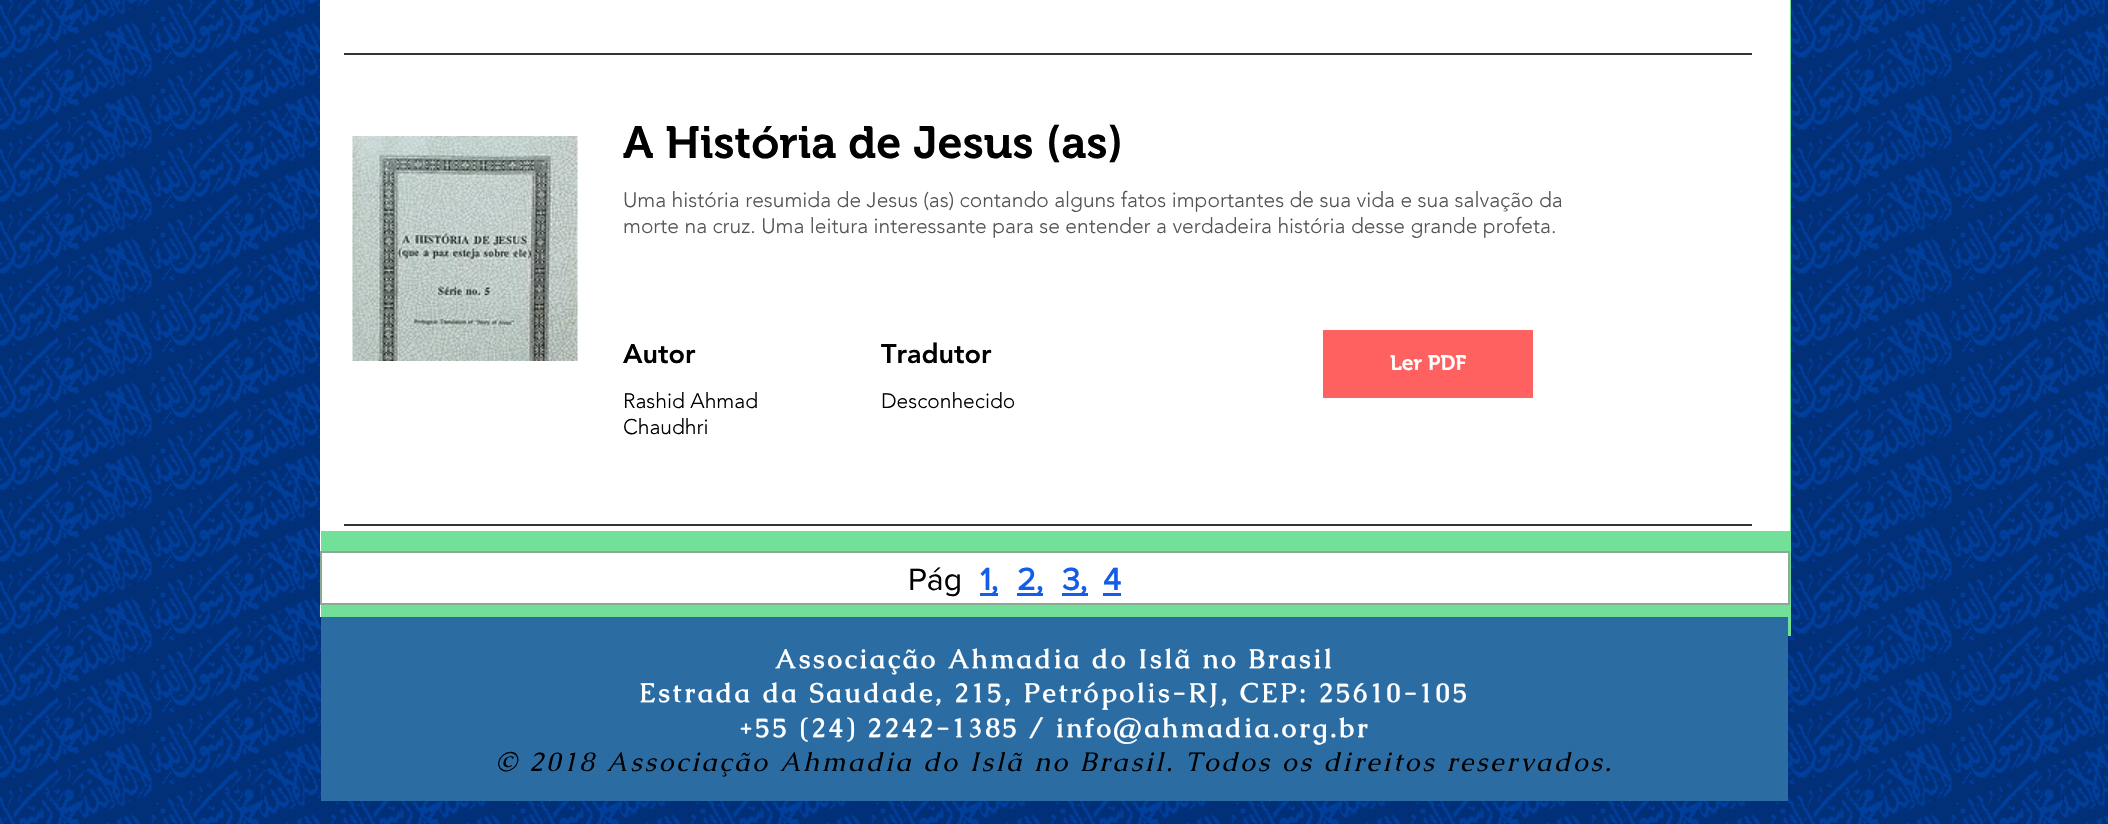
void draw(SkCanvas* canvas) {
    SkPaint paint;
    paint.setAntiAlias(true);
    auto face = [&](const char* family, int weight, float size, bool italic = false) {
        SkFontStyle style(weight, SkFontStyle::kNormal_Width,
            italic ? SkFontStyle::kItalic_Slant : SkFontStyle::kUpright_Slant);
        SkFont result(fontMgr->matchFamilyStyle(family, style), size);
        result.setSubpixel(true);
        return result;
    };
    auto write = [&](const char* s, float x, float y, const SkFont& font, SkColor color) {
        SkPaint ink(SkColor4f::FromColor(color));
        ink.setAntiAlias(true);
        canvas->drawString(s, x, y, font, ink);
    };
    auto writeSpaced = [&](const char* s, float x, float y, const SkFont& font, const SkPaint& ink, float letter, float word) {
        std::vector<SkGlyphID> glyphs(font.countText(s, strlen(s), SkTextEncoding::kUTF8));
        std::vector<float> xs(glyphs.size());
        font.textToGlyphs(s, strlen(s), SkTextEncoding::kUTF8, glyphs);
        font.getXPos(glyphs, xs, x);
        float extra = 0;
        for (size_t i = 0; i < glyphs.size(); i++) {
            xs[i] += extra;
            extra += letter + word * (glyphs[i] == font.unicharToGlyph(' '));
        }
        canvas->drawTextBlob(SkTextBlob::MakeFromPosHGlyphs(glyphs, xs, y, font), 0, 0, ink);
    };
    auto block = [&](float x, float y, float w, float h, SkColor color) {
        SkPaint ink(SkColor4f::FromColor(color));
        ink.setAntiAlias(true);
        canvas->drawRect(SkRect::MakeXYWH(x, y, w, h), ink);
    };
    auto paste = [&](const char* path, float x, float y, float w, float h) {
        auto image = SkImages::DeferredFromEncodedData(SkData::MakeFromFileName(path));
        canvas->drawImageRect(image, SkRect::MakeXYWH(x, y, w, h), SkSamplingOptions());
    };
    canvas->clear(SK_ColorWHITE);
    paste("pic1.png", 0, 0, 2108, 824);
    block(320, 531, 1, 86, SK_ColorWHITE);
    block(321, 0, 1470, 636, SkColorSetRGB(114, 224, 153));
    block(320, 0, 1470, 531, SK_ColorWHITE);
    block(344, 53, 1408, 2, SkColorSetRGB(51, 51, 51));
    paste("pic2.png", 352, 136, 226, 225);
    auto kFont1 = face("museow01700", 600, 45);
    write("A História de Jesus (as)", 623, 158, kFont1, SK_ColorBLACK);
    auto kFont2 = face("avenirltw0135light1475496", 300, 21);
    write("Uma história resumida de Jesus (as) contando alguns fatos importantes de sua vida e sua salvação da", 623, 207, kFont2, SkColorSetRGB(84, 84, 84));
    write("morte na cruz. Uma leitura interessante para se entender a verdadeira história desse grande profeta.", 623, 233, kFont2, SkColorSetRGB(84, 84, 84));
    auto kFont3 = face("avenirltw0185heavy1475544", 900, 27);
    write("Autor", 623, 363, kFont3, SK_ColorBLACK);
    write("Tradutor", 881, 363, kFont3, SK_ColorBLACK);
    block(1323, 330, 210, 68, SkColorSetRGB(255, 97, 97));
    auto kFont4 = face("museow01700", 600, 21);
    write("Ler PDF", 1390, 370, kFont4, SK_ColorWHITE);
    write("Rashid Ahmad", 623, 408, kFont2, SK_ColorBLACK);
    write("Chaudhri", 623, 434, kFont2, SK_ColorBLACK);
    write("Desconhecido", 881, 408, kFont2, SK_ColorBLACK);
    block(344, 524, 1408, 2, SkColorSetRGB(51, 51, 51));
    paint.setColor(SK_ColorWHITE);
    canvas->drawRect(SkRect::MakeXYWH(321, 552, 1468, 52), paint);
    paint.setStyle(SkPaint::kStroke_Style);
    paint.setStrokeWidth(2);
    paint.setColor(SkColorSetRGB(139, 170, 149));
    canvas->drawRect(SkRect::MakeXYWH(321, 552, 1468, 52), paint);
    auto kFont5 = face("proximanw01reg", 400, 32);
    write("Pág", 908, 590, kFont5, SK_ColorBLACK);
    block(980, 593, 18, 3, SkColorSetRGB(21, 93, 233));
    auto kFont6 = face("proximanw01reg", 700, 32);
    write("1,", 980, 590, kFont6, SkColorSetRGB(21, 93, 233));
    block(1017, 593, 26, 3, SkColorSetRGB(21, 93, 233));
    write("2,", 1017, 590, kFont6, SkColorSetRGB(21, 93, 233));
    block(1062, 593, 26, 3, SkColorSetRGB(21, 93, 233));
    write("3,", 1062, 590, kFont6, SkColorSetRGB(21, 93, 233));
    write("4", 1103, 590, kFont6, SkColorSetRGB(21, 93, 233));
    block(1103, 593, 18, 3, SkColorSetRGB(21, 93, 233));
    block(321, 617, 1467, 184, SkColorSetRGB(43, 108, 163));
    auto kFont7 = face("Caudex", 700, 27);
    paint.setStyle(SkPaint::kFill_Style);
    paint.setColor(SK_ColorWHITE);
    writeSpaced("Associação Ahmadia do Islã no Brasil", 775, 668, kFont7, paint, 2.7f, 0);
    writeSpaced("Estrada da Saudade, 215, Petrópolis-RJ, CEP: 25610-105", 639, 702, kFont7, paint, 2.7f, 0);
    writeSpaced("+55 (24) 2242-1385 / info@ahmadia.org.br", 739, 737, kFont7, paint, 2.7f, 0);
    auto kFont8 = face("Caudex", 400, 27, true);
    paint.setColor(SK_ColorBLACK);
    writeSpaced("© 2018 Associação Ahmadia do Islã no Brasil. Todos os direitos reservados.", 496, 771, kFont8, paint, 2.7f, 0);
}
